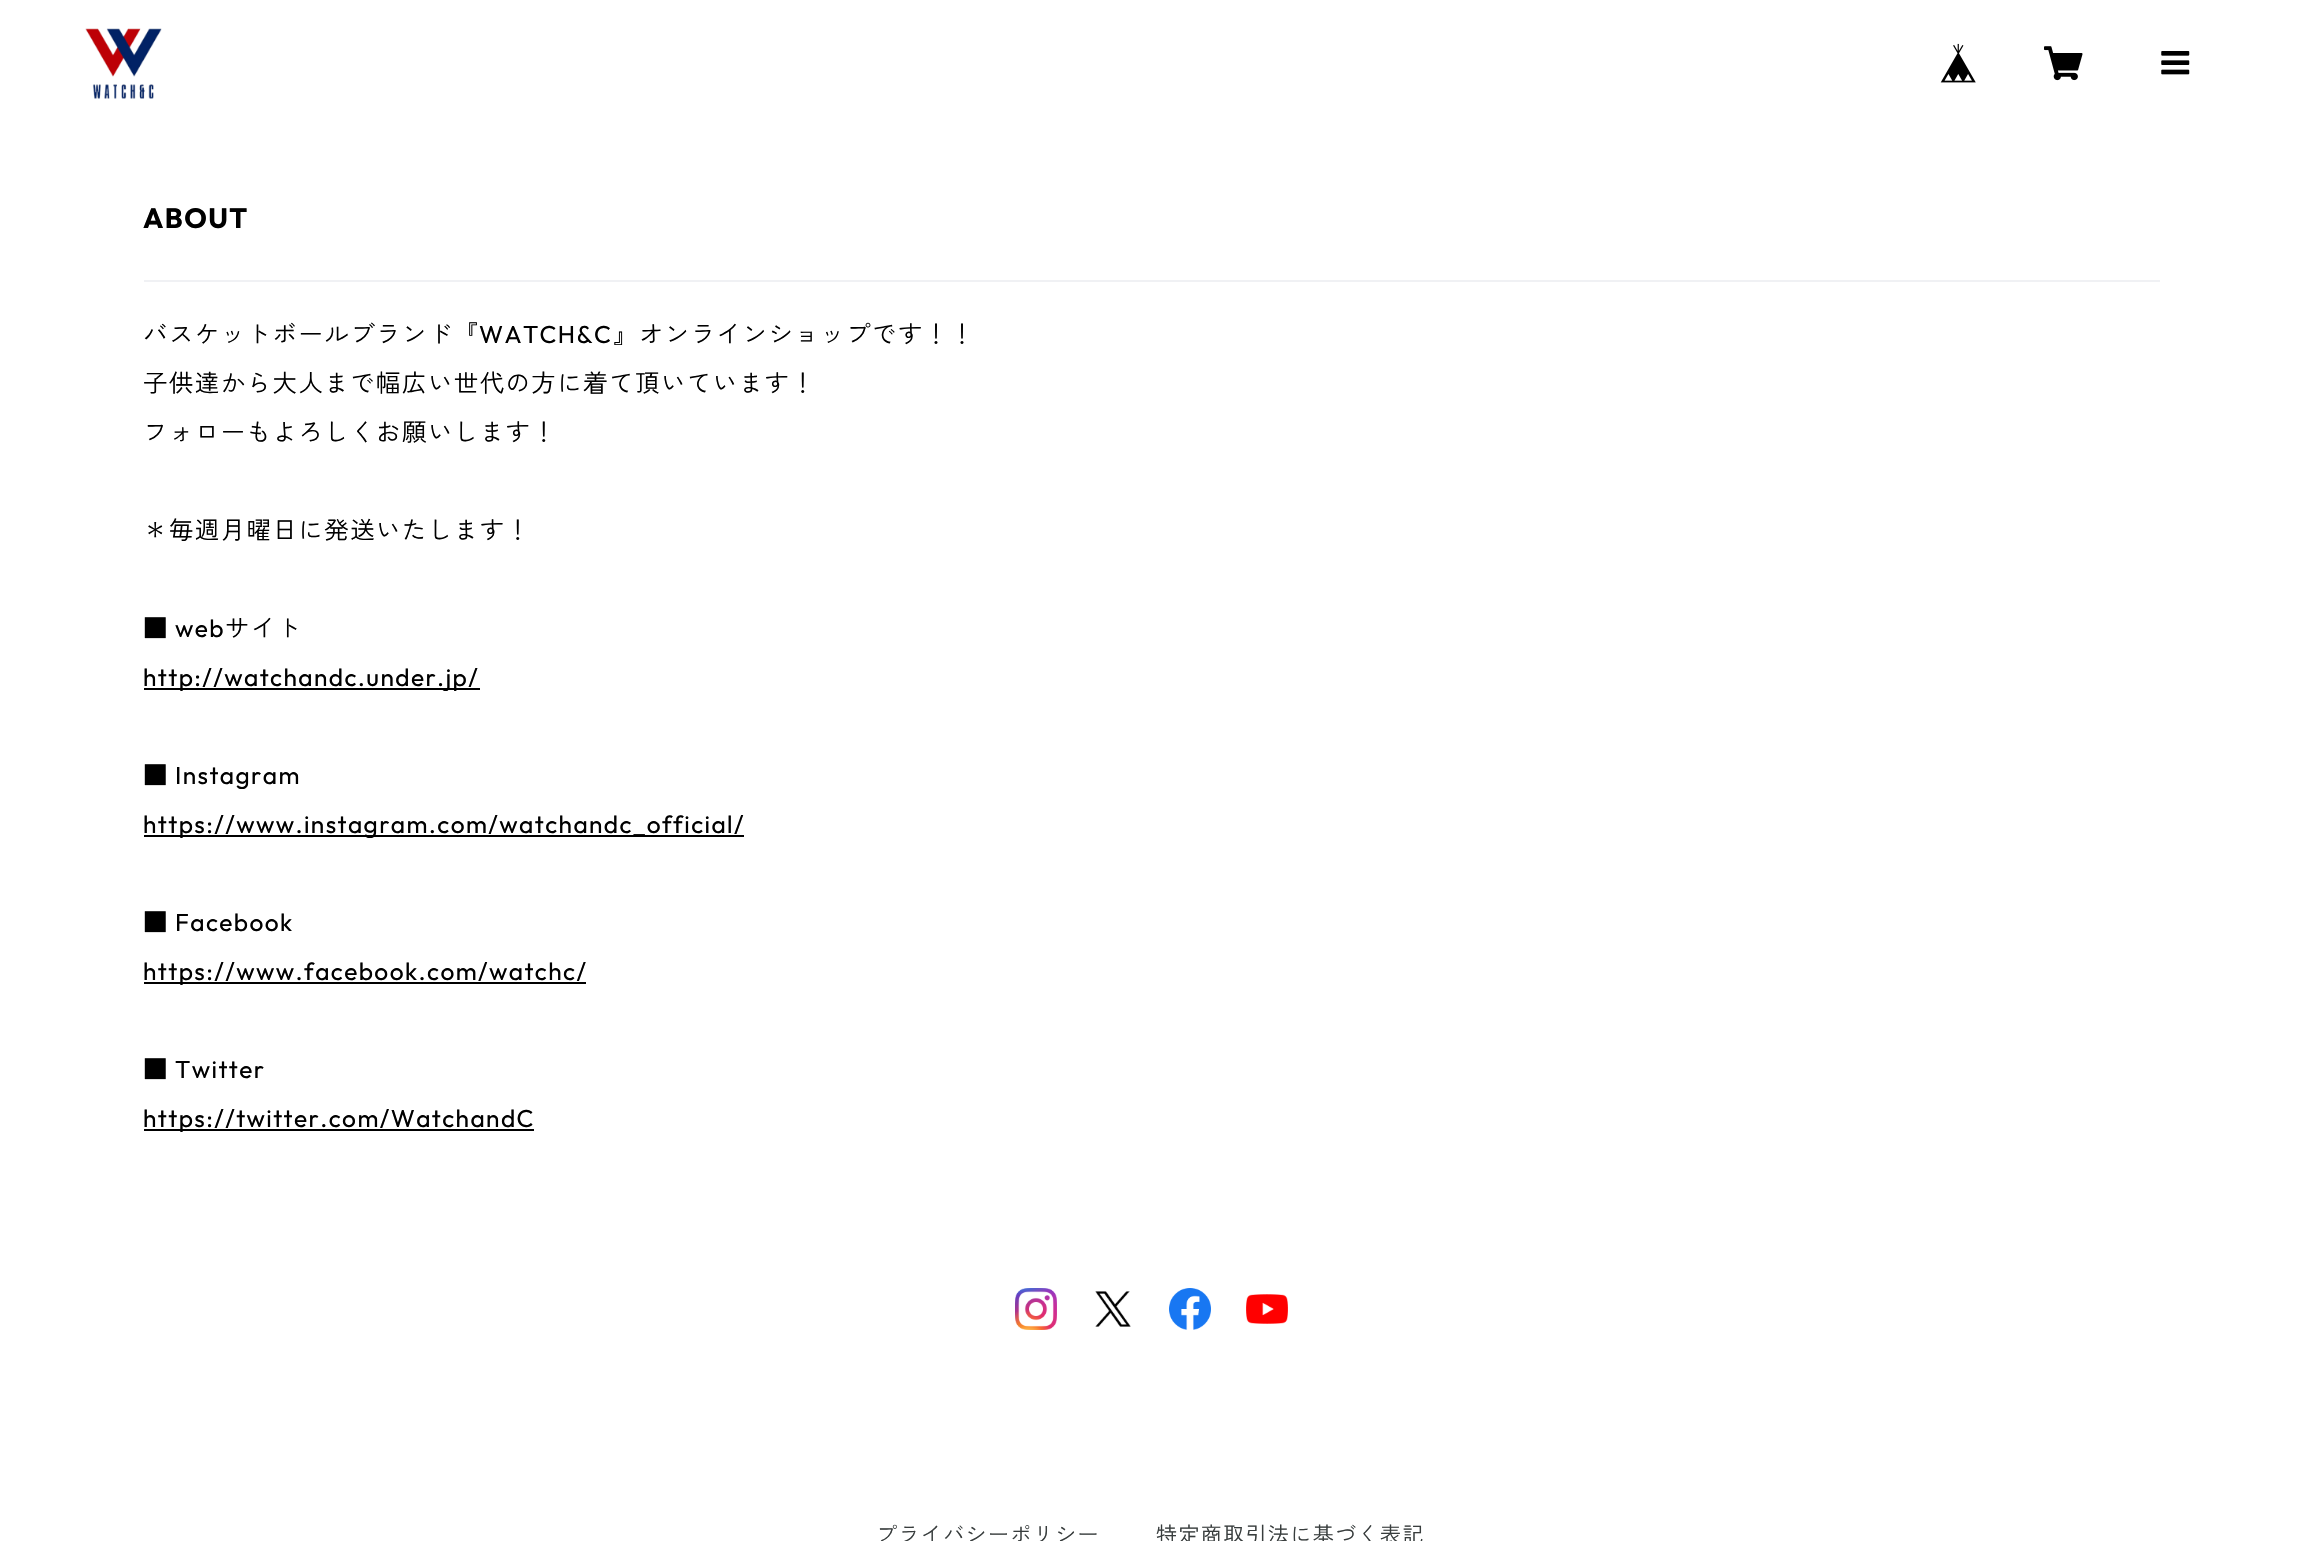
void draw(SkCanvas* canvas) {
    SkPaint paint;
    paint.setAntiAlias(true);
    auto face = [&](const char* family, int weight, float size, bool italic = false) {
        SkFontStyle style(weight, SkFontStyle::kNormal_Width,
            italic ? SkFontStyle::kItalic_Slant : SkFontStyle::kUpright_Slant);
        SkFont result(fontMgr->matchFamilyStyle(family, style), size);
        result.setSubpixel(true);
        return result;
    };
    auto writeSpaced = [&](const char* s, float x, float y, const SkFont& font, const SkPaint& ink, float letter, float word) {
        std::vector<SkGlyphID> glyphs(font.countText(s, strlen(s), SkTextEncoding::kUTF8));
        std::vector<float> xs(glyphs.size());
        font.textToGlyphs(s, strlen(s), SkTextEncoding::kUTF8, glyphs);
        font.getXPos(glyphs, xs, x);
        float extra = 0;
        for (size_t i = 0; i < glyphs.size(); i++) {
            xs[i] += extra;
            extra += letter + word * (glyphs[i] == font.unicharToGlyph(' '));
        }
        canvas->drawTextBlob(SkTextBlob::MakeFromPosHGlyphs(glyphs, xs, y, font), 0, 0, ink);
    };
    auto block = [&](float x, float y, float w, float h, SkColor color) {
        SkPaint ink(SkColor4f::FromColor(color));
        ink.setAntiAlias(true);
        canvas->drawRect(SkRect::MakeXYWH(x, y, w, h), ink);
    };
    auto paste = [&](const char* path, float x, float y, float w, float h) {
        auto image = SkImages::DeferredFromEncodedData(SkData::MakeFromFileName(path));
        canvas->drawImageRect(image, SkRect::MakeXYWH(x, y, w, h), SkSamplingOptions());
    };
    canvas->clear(SK_ColorWHITE);
    paste("pic1.png", 85, 28, 77, 71);
    paste("pic2.png", 1940, 43, 36, 40);
    paste("pic3.png", 2044, 46, 39, 35);
    paste("pic4.png", 2161, 51, 29, 24);
    block(144, 280, 2016, 2, SkColorSetRGB(240, 241, 244));
    auto kFont1 = face("Outfit", 700, 28);
    paint.setColor(SK_ColorBLACK);
    writeSpaced("ABOUT", 143, 228, kFont1, paint, 1.4f, 0);
    auto kFont2 = face("Zen Kaku Gothic New", 400, 24.5f);
    writeSpaced("バスケットボールブランド『", 143, 343, kFont2, paint, 1.4f, 0);
    auto kFont3 = face("Outfit", 400, 24.5f);
    writeSpaced("WATCH&C", 479, 343, kFont3, paint, 1.4f, 0);
    writeSpaced("』オンラインショップです！！", 613, 343, kFont2, paint, 1.4f, 0);
    writeSpaced("子供達から大人まで幅広い世代の方に着て頂いています！", 143, 392, kFont2, paint, 1.4f, 0);
    writeSpaced("フォローもよろしくお願いします！", 143, 441, kFont2, paint, 1.4f, 0);
    writeSpaced("＊毎週月曜日に発送いたします！", 143, 539, kFont2, paint, 1.4f, 0);
    writeSpaced("■", 143, 637, kFont2, paint, 1.4f, 0);
    writeSpaced("web", 175, 637, kFont3, paint, 1.4f, 0);
    writeSpaced("サイト", 225, 637, kFont2, paint, 1.4f, 0);
    block(144, 688, 336, 2, SK_ColorBLACK);
    writeSpaced("http://watchandc.under.jp/", 143, 686, kFont3, paint, 1.4f, 0);
    writeSpaced("■", 143, 784, kFont2, paint, 1.4f, 0);
    writeSpaced("Instagram", 175, 784, kFont3, paint, 1.4f, 0);
    block(144, 835, 600, 2, SK_ColorBLACK);
    writeSpaced("https://www.instagram.com/watchandc_official/", 143, 833, kFont3, paint, 1.4f, 0);
    writeSpaced("■", 143, 931, kFont2, paint, 1.4f, 0);
    writeSpaced("Facebook", 175, 931, kFont3, paint, 1.4f, 0);
    block(144, 982, 442, 2, SK_ColorBLACK);
    writeSpaced("https://www.facebook.com/watchc/", 143, 980, kFont3, paint, 1.4f, 0);
    writeSpaced("■", 143, 1078, kFont2, paint, 1.4f, 0);
    writeSpaced("Twitter", 175, 1078, kFont3, paint, 1.4f, 0);
    block(144, 1129, 390, 2, SK_ColorBLACK);
    writeSpaced("https://twitter.com/WatchandC", 143, 1127, kFont3, paint, 1.4f, 0);
    paste("pic5.png", 1015, 1288, 42, 42);
    paste("pic6.png", 1095, 1291, 36, 36);
    paste("pic7.png", 1169, 1288, 42, 42);
    paste("pic8.png", 1246, 1294, 42, 30);
    auto kFont4 = face("Zen Kaku Gothic New", 400, 21);
    paint.setColor(SkColorSetRGB(56, 61, 61));
    writeSpaced("プライバシーポリシー", 876, 1542, kFont4, paint, 1.4f, 0);
    writeSpaced("特定商取引法に基づく表記", 1156, 1542, kFont4, paint, 1.4f, 0);
}
